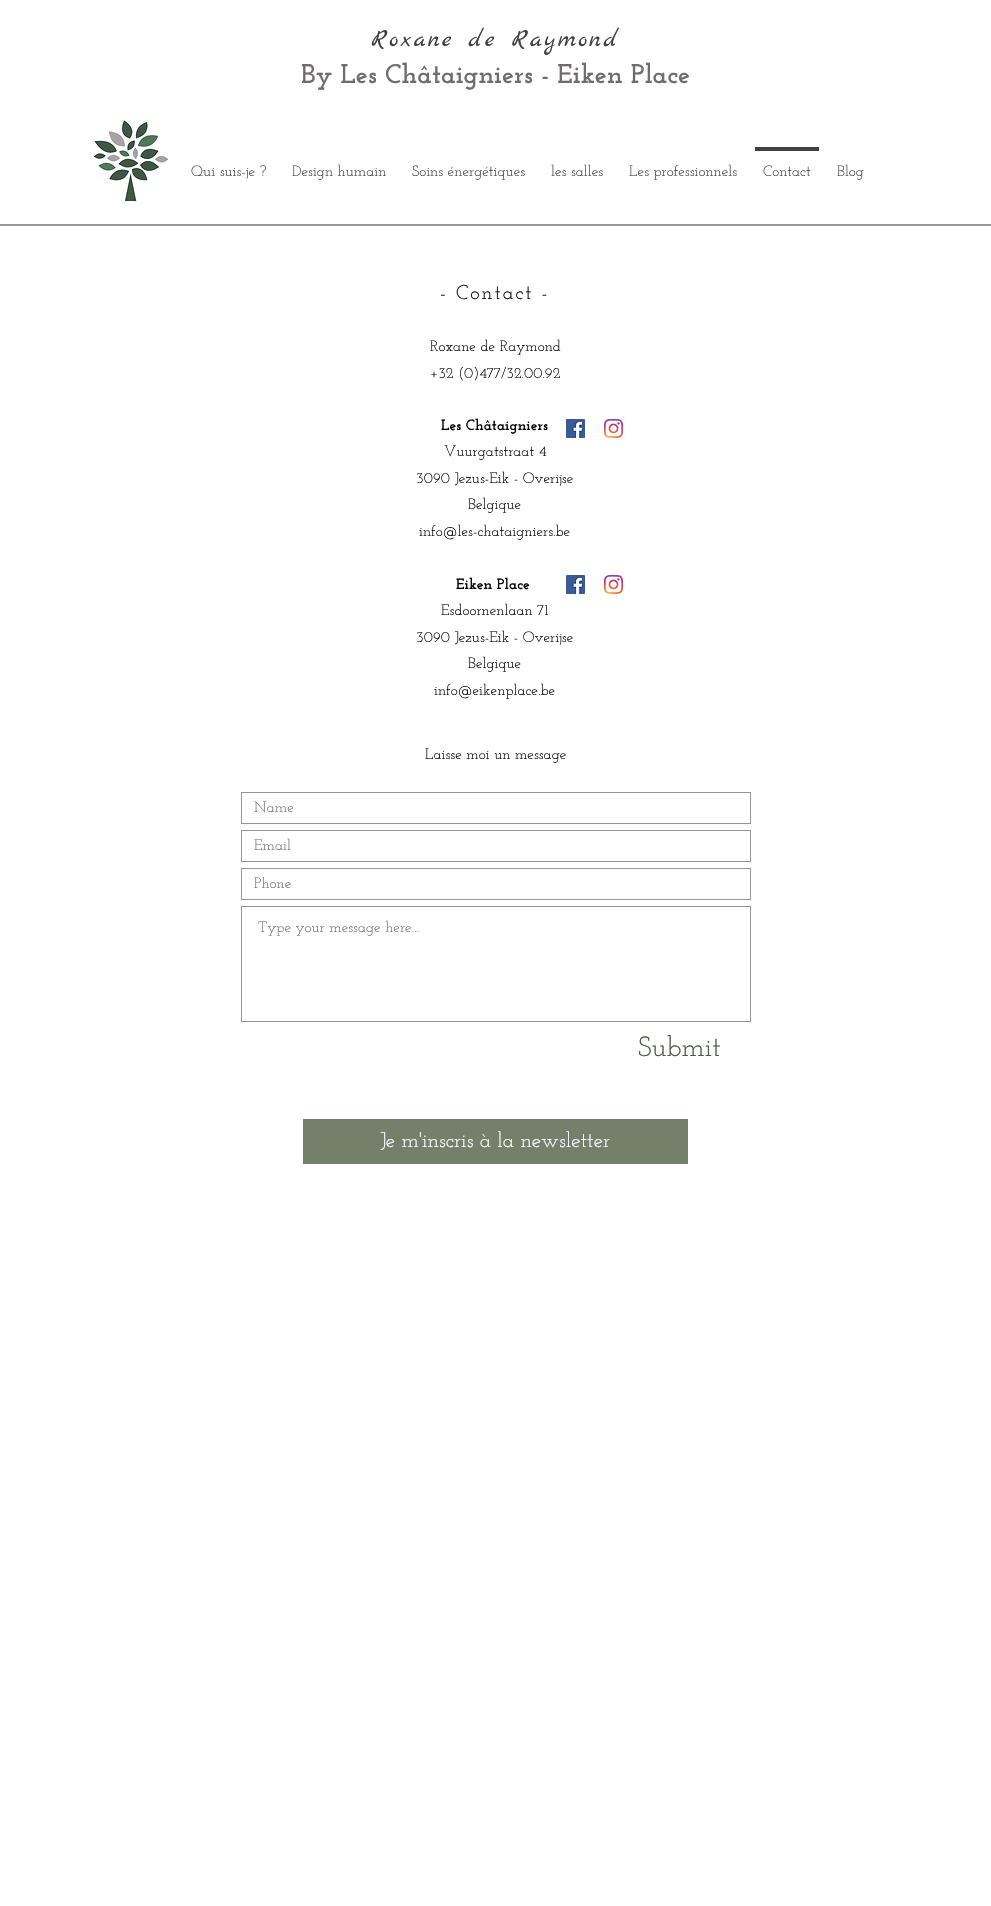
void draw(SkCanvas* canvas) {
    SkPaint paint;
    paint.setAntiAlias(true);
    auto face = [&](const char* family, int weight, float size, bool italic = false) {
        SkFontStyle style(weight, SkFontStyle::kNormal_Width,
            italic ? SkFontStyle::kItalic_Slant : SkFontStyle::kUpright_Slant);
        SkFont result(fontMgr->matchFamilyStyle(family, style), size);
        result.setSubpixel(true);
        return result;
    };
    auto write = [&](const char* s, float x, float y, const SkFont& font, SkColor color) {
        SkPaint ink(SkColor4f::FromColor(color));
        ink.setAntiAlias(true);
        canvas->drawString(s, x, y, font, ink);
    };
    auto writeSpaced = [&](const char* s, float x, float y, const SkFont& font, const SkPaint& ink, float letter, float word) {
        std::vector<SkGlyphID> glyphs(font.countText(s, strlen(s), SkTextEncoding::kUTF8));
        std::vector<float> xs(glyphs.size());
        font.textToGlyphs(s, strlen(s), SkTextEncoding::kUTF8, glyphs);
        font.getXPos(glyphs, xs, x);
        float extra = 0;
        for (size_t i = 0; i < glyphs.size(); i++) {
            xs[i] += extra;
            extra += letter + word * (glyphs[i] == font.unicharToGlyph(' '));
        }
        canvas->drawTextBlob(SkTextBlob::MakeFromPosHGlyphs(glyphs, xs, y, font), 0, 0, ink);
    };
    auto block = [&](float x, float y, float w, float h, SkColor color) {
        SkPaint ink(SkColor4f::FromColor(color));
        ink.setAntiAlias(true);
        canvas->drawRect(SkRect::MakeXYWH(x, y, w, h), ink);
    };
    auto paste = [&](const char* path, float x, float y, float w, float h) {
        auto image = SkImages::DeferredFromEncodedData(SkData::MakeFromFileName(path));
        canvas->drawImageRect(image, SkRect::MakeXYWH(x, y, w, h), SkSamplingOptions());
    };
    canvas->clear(SK_ColorWHITE);
    auto kFont1 = face("Marck Script", 400, 25);
    paint.setColor(SkColorSetRGB(64, 64, 65));
    writeSpaced("Roxane de Raymond", 371, 46, kFont1, paint, 2.5f, 0);
    auto kFont2 = face("Josefin Slab", 700, 27);
    write("By Les Châtaigniers - Eiken Place", 301, 83, kFont2, SkColorSetRGB(112, 108, 108));
    paste("pic1.png", 94, 120, 74, 81);
    auto kFont3 = face("Josefin Slab", 400, 15);
    write("Qui suis-je ?", 191, 176, kFont3, SkColorSetRGB(64, 64, 65));
    write("Design humain", 292, 176, kFont3, SkColorSetRGB(64, 64, 65));
    write("Soins énergétiques", 412, 176, kFont3, SkColorSetRGB(64, 64, 65));
    write("les salles", 551, 176, kFont3, SkColorSetRGB(64, 64, 65));
    write("Les professionnels", 629, 176, kFont3, SkColorSetRGB(64, 64, 65));
    block(755, 147, 64, 4, SkColorSetRGB(64, 64, 65));
    write("Contact", 763, 176, kFont3, SkColorSetRGB(64, 64, 65));
    write("Blog", 837, 176, kFont3, SkColorSetRGB(64, 64, 65));
    block(0, 224, 991, 2, SkColorSetRGB(151, 151, 151));
    auto kFont4 = face("Josefin Slab", 400, 20);
    paint.setColor(SK_ColorBLACK);
    writeSpaced("- Contact -", 440, 299, kFont4, paint, 2, 0);
    write("Roxane de Raymond", 430, 351, kFont3, SK_ColorBLACK);
    write("+32 (0)477/32.00.92", 430, 378, kFont3, SK_ColorBLACK);
    auto kFont5 = face("Josefin Slab", 700, 15);
    write("Les Châtaigniers", 441, 430, kFont5, SK_ColorBLACK);
    write("Vuurgatstraat 4", 444, 456, kFont3, SK_ColorBLACK);
    write("3090 Jezus-Eik - Overijse", 416, 483, kFont3, SK_ColorBLACK);
    write("Belgique", 468, 509, kFont3, SK_ColorBLACK);
    write("info@les-chataigniers.be", 419, 536, kFont3, SK_ColorBLACK);
    write("Eiken Place", 456, 589, kFont5, SK_ColorBLACK);
    write("Esdoornenlaan 71", 441, 615, kFont3, SK_ColorBLACK);
    write("3090 Jezus-Eik - Overijse", 416, 642, kFont3, SK_ColorBLACK);
    write("Belgique", 468, 668, kFont3, SK_ColorBLACK);
    write("info@eikenplace.be", 434, 695, kFont3, SK_ColorBLACK);
    paste("pic2.png", 566, 419, 19, 19);
    paste("pic3.png", 604, 419, 19, 19);
    paste("pic2.png", 566, 575, 19, 19);
    paste("pic3.png", 604, 575, 19, 19);
    write("Laisse moi un message", 425, 759, kFont3, SK_ColorBLACK);
    paint.setStyle(SkPaint::kStroke_Style);
    paint.setStrokeWidth(1);
    paint.setColor(SkColorSetRGB(150, 150, 151));
    canvas->drawRect(SkRect::MakeXYWH(241.5f, 792.5f, 509, 31), paint);
    write("Name", 254, 812, kFont3, SkColorSetRGB(112, 108, 108));
    canvas->drawRect(SkRect::MakeXYWH(241.5f, 830.5f, 509, 31), paint);
    write("Email", 254, 850, kFont3, SkColorSetRGB(112, 108, 108));
    canvas->drawRect(SkRect::MakeXYWH(241.5f, 868.5f, 509, 31), paint);
    canvas->save();
    canvas->clipRect(SkRect::MakeXYWH(254, 877, 493, 15));
    write("Phone", 254, 888, kFont3, SkColorSetRGB(112, 108, 108));
    canvas->restore();
    canvas->drawRect(SkRect::MakeXYWH(241.5f, 906.5f, 509, 115), paint);
    write("Type your message here...", 258, 932, kFont3, SkColorSetRGB(112, 108, 108));
    auto kFont6 = face("Josefin Slab", 400, 28);
    write("Submit", 638, 1056, kFont6, SkColorSetRGB(77, 85, 71));
    block(303, 1119, 385, 45, SkColorSetRGB(116, 128, 106));
    auto kFont7 = face("Josefin Slab", 400, 21);
    write("Je m'inscris à la newsletter", 380, 1147, kFont7, SK_ColorWHITE);
}
